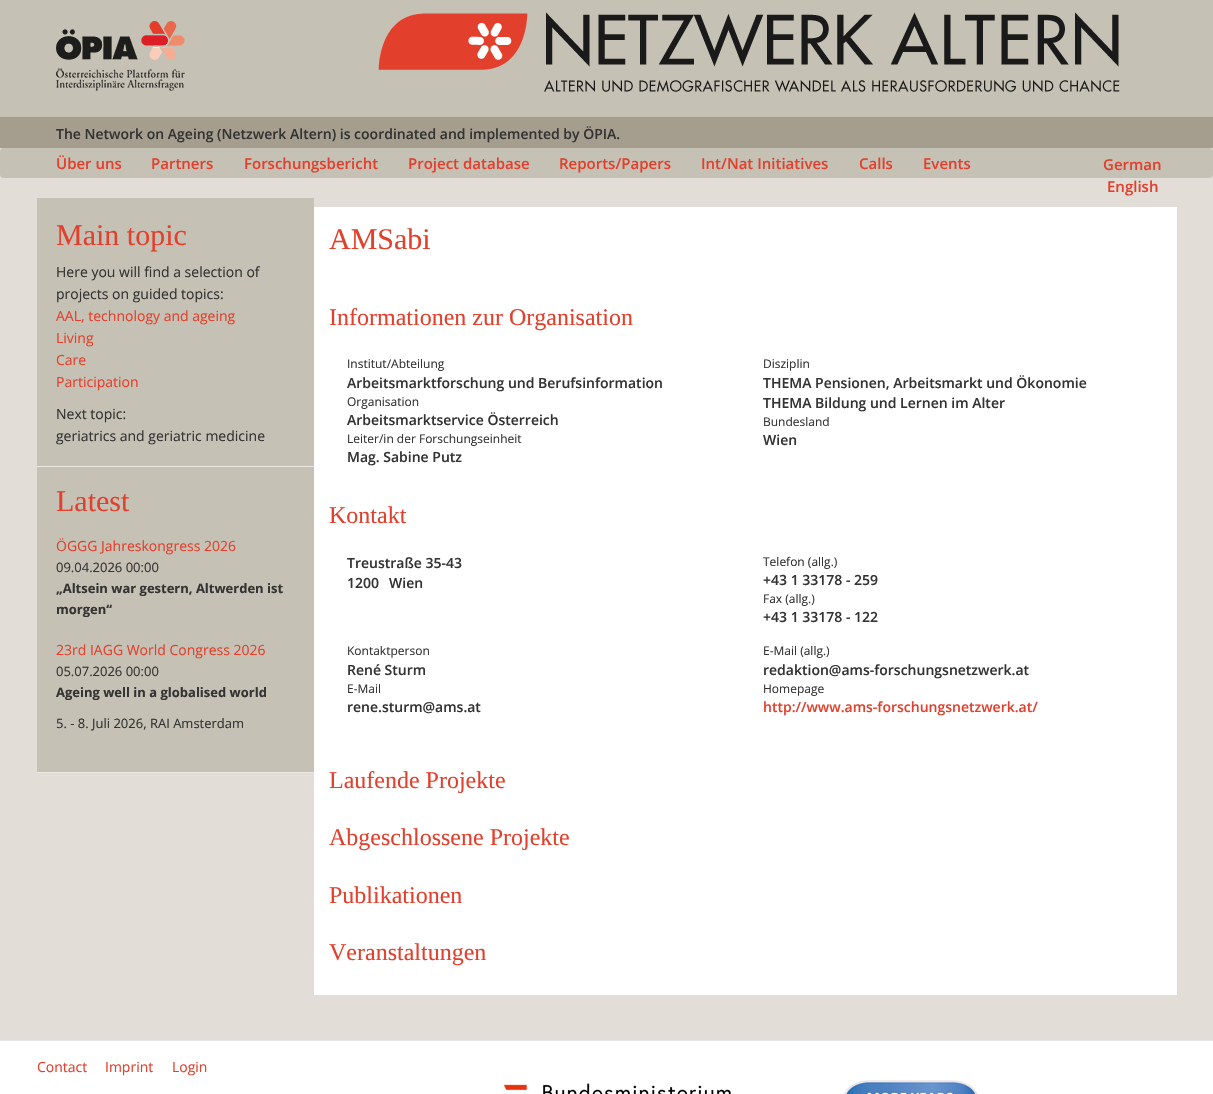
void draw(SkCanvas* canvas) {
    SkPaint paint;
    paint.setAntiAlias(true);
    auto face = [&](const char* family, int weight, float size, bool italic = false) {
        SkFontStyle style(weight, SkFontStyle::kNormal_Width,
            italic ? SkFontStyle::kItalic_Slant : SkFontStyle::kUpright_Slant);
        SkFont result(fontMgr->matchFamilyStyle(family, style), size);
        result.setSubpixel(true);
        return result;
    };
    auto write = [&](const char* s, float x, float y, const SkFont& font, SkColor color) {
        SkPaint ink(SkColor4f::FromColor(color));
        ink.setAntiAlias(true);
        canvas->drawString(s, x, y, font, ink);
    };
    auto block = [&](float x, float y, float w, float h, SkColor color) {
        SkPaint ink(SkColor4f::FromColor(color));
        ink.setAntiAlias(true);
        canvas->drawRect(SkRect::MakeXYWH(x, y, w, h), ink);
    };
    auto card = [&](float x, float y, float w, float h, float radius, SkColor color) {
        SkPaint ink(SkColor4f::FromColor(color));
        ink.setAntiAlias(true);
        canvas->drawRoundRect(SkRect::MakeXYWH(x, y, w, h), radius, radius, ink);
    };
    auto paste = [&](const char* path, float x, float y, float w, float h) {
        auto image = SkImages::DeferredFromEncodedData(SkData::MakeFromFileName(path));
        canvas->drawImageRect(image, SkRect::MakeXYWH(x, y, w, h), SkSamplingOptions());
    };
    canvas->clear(SkColorSetRGB(226, 222, 215));
    block(0, 0, 1213, 117, SkColorSetRGB(198, 193, 181));
    paste("pic1.png", 56, 21, 129, 70);
    paste("pic2.png", 378, 12, 742, 80);
    block(0, 117, 1213, 31, SkColorSetRGB(165, 158, 142));
    auto kFont1 = face("Open Sans", 600, 14);
    write("The Network on Ageing (Netzwerk Altern) is coordinated and implemented by ÖPIA.", 56, 139, kFont1, SkColorSetRGB(51, 51, 51));
    card(0, 148, 1213, 30, 4, SkColorSetRGB(198, 193, 181));
    auto kFont2 = face("Open Sans", 600, 15);
    write("Über uns", 56, 169, kFont2, SkColorSetRGB(226, 64, 44));
    write("Partners", 151, 169, kFont2, SkColorSetRGB(226, 64, 44));
    write("Forschungsbericht", 244, 169, kFont2, SkColorSetRGB(226, 64, 44));
    write("Project database", 408, 169, kFont2, SkColorSetRGB(226, 64, 44));
    write("Reports/Papers", 559, 169, kFont2, SkColorSetRGB(226, 64, 44));
    write("Int/Nat Initiatives", 701, 169, kFont2, SkColorSetRGB(226, 64, 44));
    write("Calls", 859, 169, kFont2, SkColorSetRGB(226, 64, 44));
    write("Events", 923, 169, kFont2, SkColorSetRGB(226, 64, 44));
    write("German", 1103, 170, kFont2, SkColorSetRGB(226, 64, 44));
    write("English", 1107, 192, kFont2, SkColorSetRGB(226, 64, 44));
    block(37, 198, 277, 574, SkColorSetRGB(198, 193, 181));
    block(37, 466, 277, 1, SkColorSetRGB(235, 232, 225));
    auto kFont3 = face("Liberation Serif", 400, 30);
    write("Main topic", 56, 245, kFont3, SkColorSetRGB(226, 64, 44));
    auto kFont4 = face("Open Sans", 400, 14);
    write("Here you will find a selection of", 56, 277, kFont4, SkColorSetRGB(51, 51, 51));
    write("projects on guided topics:", 56, 299, kFont4, SkColorSetRGB(51, 51, 51));
    write("AAL, technology and ageing", 56, 321, kFont4, SkColorSetRGB(226, 64, 44));
    write("Living", 56, 343, kFont4, SkColorSetRGB(226, 64, 44));
    write("Care", 56, 365, kFont4, SkColorSetRGB(226, 64, 44));
    write("Participation", 56, 387, kFont4, SkColorSetRGB(226, 64, 44));
    write("Next topic:", 56, 419, kFont4, SkColorSetRGB(51, 51, 51));
    write("geriatrics and geriatric medicine", 56, 441, kFont4, SkColorSetRGB(51, 51, 51));
    block(37, 772, 277, 1, SkColorSetRGB(235, 232, 225));
    write("Latest", 56, 511, kFont3, SkColorSetRGB(226, 64, 44));
    write("ÖGGG Jahreskongress 2026", 56, 551, kFont4, SkColorSetRGB(226, 64, 44));
    auto kFont5 = face("Open Sans", 400, 13);
    write("09.04.2026 00:00", 56, 572, kFont5, SkColorSetRGB(51, 51, 51));
    auto kFont6 = face("Open Sans", 700, 13);
    write("„Altsein war gestern, Altwerden ist", 56, 593, kFont6, SkColorSetRGB(51, 51, 51));
    write("morgen“", 56, 614, kFont6, SkColorSetRGB(51, 51, 51));
    write("23rd IAGG World Congress 2026", 56, 655, kFont4, SkColorSetRGB(226, 64, 44));
    write("05.07.2026 00:00", 56, 676, kFont5, SkColorSetRGB(51, 51, 51));
    write("Ageing well in a globalised world", 56, 697, kFont6, SkColorSetRGB(51, 51, 51));
    write("5. - 8. Juli 2026, RAI Amsterdam", 56, 728, kFont5, SkColorSetRGB(51, 51, 51));
    block(314, 207, 863, 788, SK_ColorWHITE);
    write("AMSabi", 329, 249, kFont3, SkColorSetRGB(226, 64, 44));
    auto kFont7 = face("Liberation Serif", 400, 24);
    write("Informationen zur Organisation", 329, 325, kFont7, SkColorSetRGB(226, 64, 44));
    auto kFont8 = face("Open Sans", 400, 12);
    write("Institut/Abteilung", 347, 368, kFont8, SkColorSetRGB(51, 51, 51));
    write("Arbeitsmarktforschung und Berufsinformation", 347, 388, kFont1, SkColorSetRGB(51, 51, 51));
    write("Organisation", 347, 406, kFont8, SkColorSetRGB(51, 51, 51));
    write("Arbeitsmarktservice Österreich", 347, 425, kFont1, SkColorSetRGB(51, 51, 51));
    write("Leiter/in der Forschungseinheit", 347, 443, kFont8, SkColorSetRGB(51, 51, 51));
    write("Mag. Sabine Putz", 347, 462, kFont1, SkColorSetRGB(51, 51, 51));
    write("Disziplin", 763, 368, kFont8, SkColorSetRGB(51, 51, 51));
    write("THEMA Pensionen, Arbeitsmarkt und Ökonomie", 763, 388, kFont1, SkColorSetRGB(51, 51, 51));
    write("THEMA Bildung und Lernen im Alter", 763, 408, kFont1, SkColorSetRGB(51, 51, 51));
    write("Bundesland", 763, 426, kFont8, SkColorSetRGB(51, 51, 51));
    write("Wien", 763, 445, kFont1, SkColorSetRGB(51, 51, 51));
    write("Kontakt", 329, 523, kFont7, SkColorSetRGB(226, 64, 44));
    write("Treustraße 35-43", 347, 568, kFont1, SkColorSetRGB(51, 51, 51));
    write("1200", 347, 588, kFont1, SkColorSetRGB(51, 51, 51));
    write("Wien", 389, 588, kFont1, SkColorSetRGB(51, 51, 51));
    write("Telefon (allg.)", 763, 566, kFont8, SkColorSetRGB(51, 51, 51));
    write("+43 1 33178 - 259", 763, 585, kFont1, SkColorSetRGB(51, 51, 51));
    write("Fax (allg.)", 763, 603, kFont8, SkColorSetRGB(51, 51, 51));
    write("+43 1 33178 - 122", 763, 622, kFont1, SkColorSetRGB(51, 51, 51));
    write("Kontaktperson", 347, 655, kFont8, SkColorSetRGB(51, 51, 51));
    write("René Sturm", 347, 675, kFont1, SkColorSetRGB(51, 51, 51));
    write("E-Mail", 347, 693, kFont8, SkColorSetRGB(51, 51, 51));
    write("rene.sturm@ams.at", 347, 712, kFont1, SkColorSetRGB(51, 51, 51));
    write("E-Mail (allg.)", 763, 655, kFont8, SkColorSetRGB(51, 51, 51));
    write("redaktion@ams-forschungsnetzwerk.at", 763, 675, kFont1, SkColorSetRGB(51, 51, 51));
    write("Homepage", 763, 693, kFont8, SkColorSetRGB(51, 51, 51));
    write("http://www.ams-forschungsnetzwerk.at/", 763, 712, kFont1, SkColorSetRGB(226, 64, 44));
    write("Laufende Projekte", 329, 788, kFont7, SkColorSetRGB(226, 64, 44));
    write("Abgeschlossene Projekte", 329, 845, kFont7, SkColorSetRGB(226, 64, 44));
    write("Publikationen", 329, 903, kFont7, SkColorSetRGB(226, 64, 44));
    write("Veranstaltungen", 329, 960, kFont7, SkColorSetRGB(226, 64, 44));
    block(0, 1041, 1213, 53, SK_ColorWHITE);
    block(0, 1040, 1213, 1, SkColorSetRGB(229, 229, 229));
    write("Contact", 37, 1072, kFont4, SkColorSetRGB(226, 64, 44));
    write("Imprint", 105, 1072, kFont4, SkColorSetRGB(226, 64, 44));
    write("Login", 172, 1072, kFont4, SkColorSetRGB(226, 64, 44));
    paste("pic3.png", 503, 1083, 228, 11);
    paste("pic4.png", 844, 1080, 134, 14);
}
